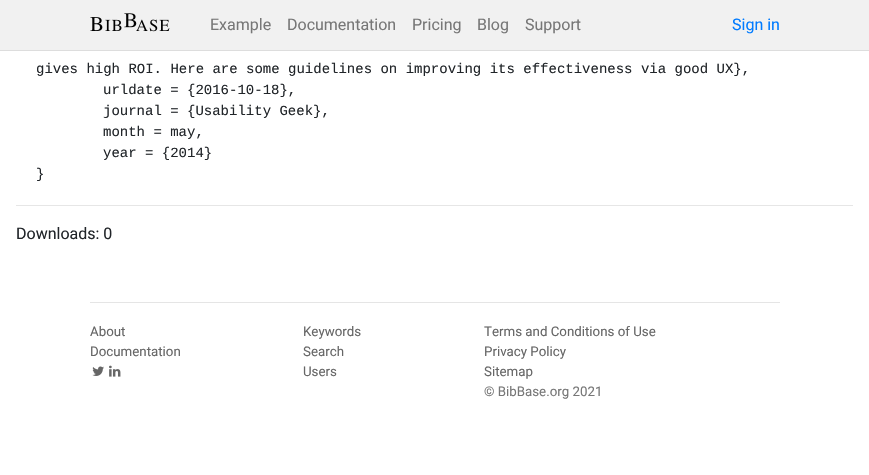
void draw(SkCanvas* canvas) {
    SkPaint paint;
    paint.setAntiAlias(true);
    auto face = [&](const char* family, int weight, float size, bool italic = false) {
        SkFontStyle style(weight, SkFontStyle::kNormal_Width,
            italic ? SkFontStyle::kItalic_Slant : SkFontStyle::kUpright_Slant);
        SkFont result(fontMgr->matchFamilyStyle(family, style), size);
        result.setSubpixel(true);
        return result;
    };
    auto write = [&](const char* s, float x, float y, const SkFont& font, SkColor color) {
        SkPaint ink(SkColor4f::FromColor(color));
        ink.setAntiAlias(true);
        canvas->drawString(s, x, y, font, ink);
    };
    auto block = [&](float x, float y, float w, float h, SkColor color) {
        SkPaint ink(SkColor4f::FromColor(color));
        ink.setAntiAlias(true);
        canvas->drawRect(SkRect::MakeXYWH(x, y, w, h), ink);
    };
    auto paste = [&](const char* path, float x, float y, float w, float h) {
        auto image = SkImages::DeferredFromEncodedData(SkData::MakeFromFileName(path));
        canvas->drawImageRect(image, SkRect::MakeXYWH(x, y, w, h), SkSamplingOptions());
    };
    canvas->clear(SK_ColorWHITE);
    block(0, 0, 869, 50, SkColorSetARGB(230, 240, 240, 240));
    block(0, 50, 869, 1, SkColorSetRGB(221, 221, 221));
    paste("pic1.png", 90, 13, 80, 19);
    auto kFont1 = face("Roboto", 400, 16);
    write("Example", 210, 30, kFont1, SkColorSetRGB(119, 119, 119));
    write("Documentation", 287, 30, kFont1, SkColorSetRGB(119, 119, 119));
    write("Pricing", 412, 30, kFont1, SkColorSetRGB(119, 119, 119));
    write("Blog", 477, 30, kFont1, SkColorSetRGB(119, 119, 119));
    write("Support", 525, 30, kFont1, SkColorSetRGB(119, 119, 119));
    write("Sign in", 732, 30, kFont1, SkColorSetRGB(0, 123, 255));
    auto kFont2 = face("Liberation Mono", 400, 14);
    write("gives high ROI. Here are some guidelines on improving its effectiveness via good UX},", 36, 73, kFont2, SkColorSetRGB(33, 37, 41));
    write("urldate = {2016-10-18},", 103, 94, kFont2, SkColorSetRGB(33, 37, 41));
    write("journal = {Usability Geek},", 103, 115, kFont2, SkColorSetRGB(33, 37, 41));
    write("month = may,", 103, 136, kFont2, SkColorSetRGB(33, 37, 41));
    write("year = {2014}", 103, 157, kFont2, SkColorSetRGB(33, 37, 41));
    write("}", 36, 178, kFont2, SkColorSetRGB(33, 37, 41));
    block(16, 205, 837, 1, SkColorSetRGB(230, 230, 230));
    write("Downloads: 0", 16, 239, kFont1, SkColorSetRGB(33, 37, 41));
    block(90, 302, 690, 1, SkColorSetRGB(229, 229, 229));
    auto kFont3 = face("Roboto", 400, 13.3f);
    write("About", 90, 336, kFont3, SkColorSetRGB(102, 102, 102));
    write("Documentation", 90, 356, kFont3, SkColorSetRGB(102, 102, 102));
    paste("pic2.png", 92, 366, 12, 10);
    paste("pic3.png", 109, 365, 12, 12);
    write("Keywords", 303, 336, kFont3, SkColorSetRGB(102, 102, 102));
    write("Search", 303, 356, kFont3, SkColorSetRGB(102, 102, 102));
    write("Users", 303, 376, kFont3, SkColorSetRGB(102, 102, 102));
    write("Terms and Conditions of Use", 484, 336, kFont3, SkColorSetRGB(102, 102, 102));
    write("Privacy Policy", 484, 356, kFont3, SkColorSetRGB(102, 102, 102));
    write("Sitemap", 484, 376, kFont3, SkColorSetRGB(102, 102, 102));
    write("© BibBase.org 2021", 484, 396, kFont3, SkColorSetRGB(119, 119, 119));
}
